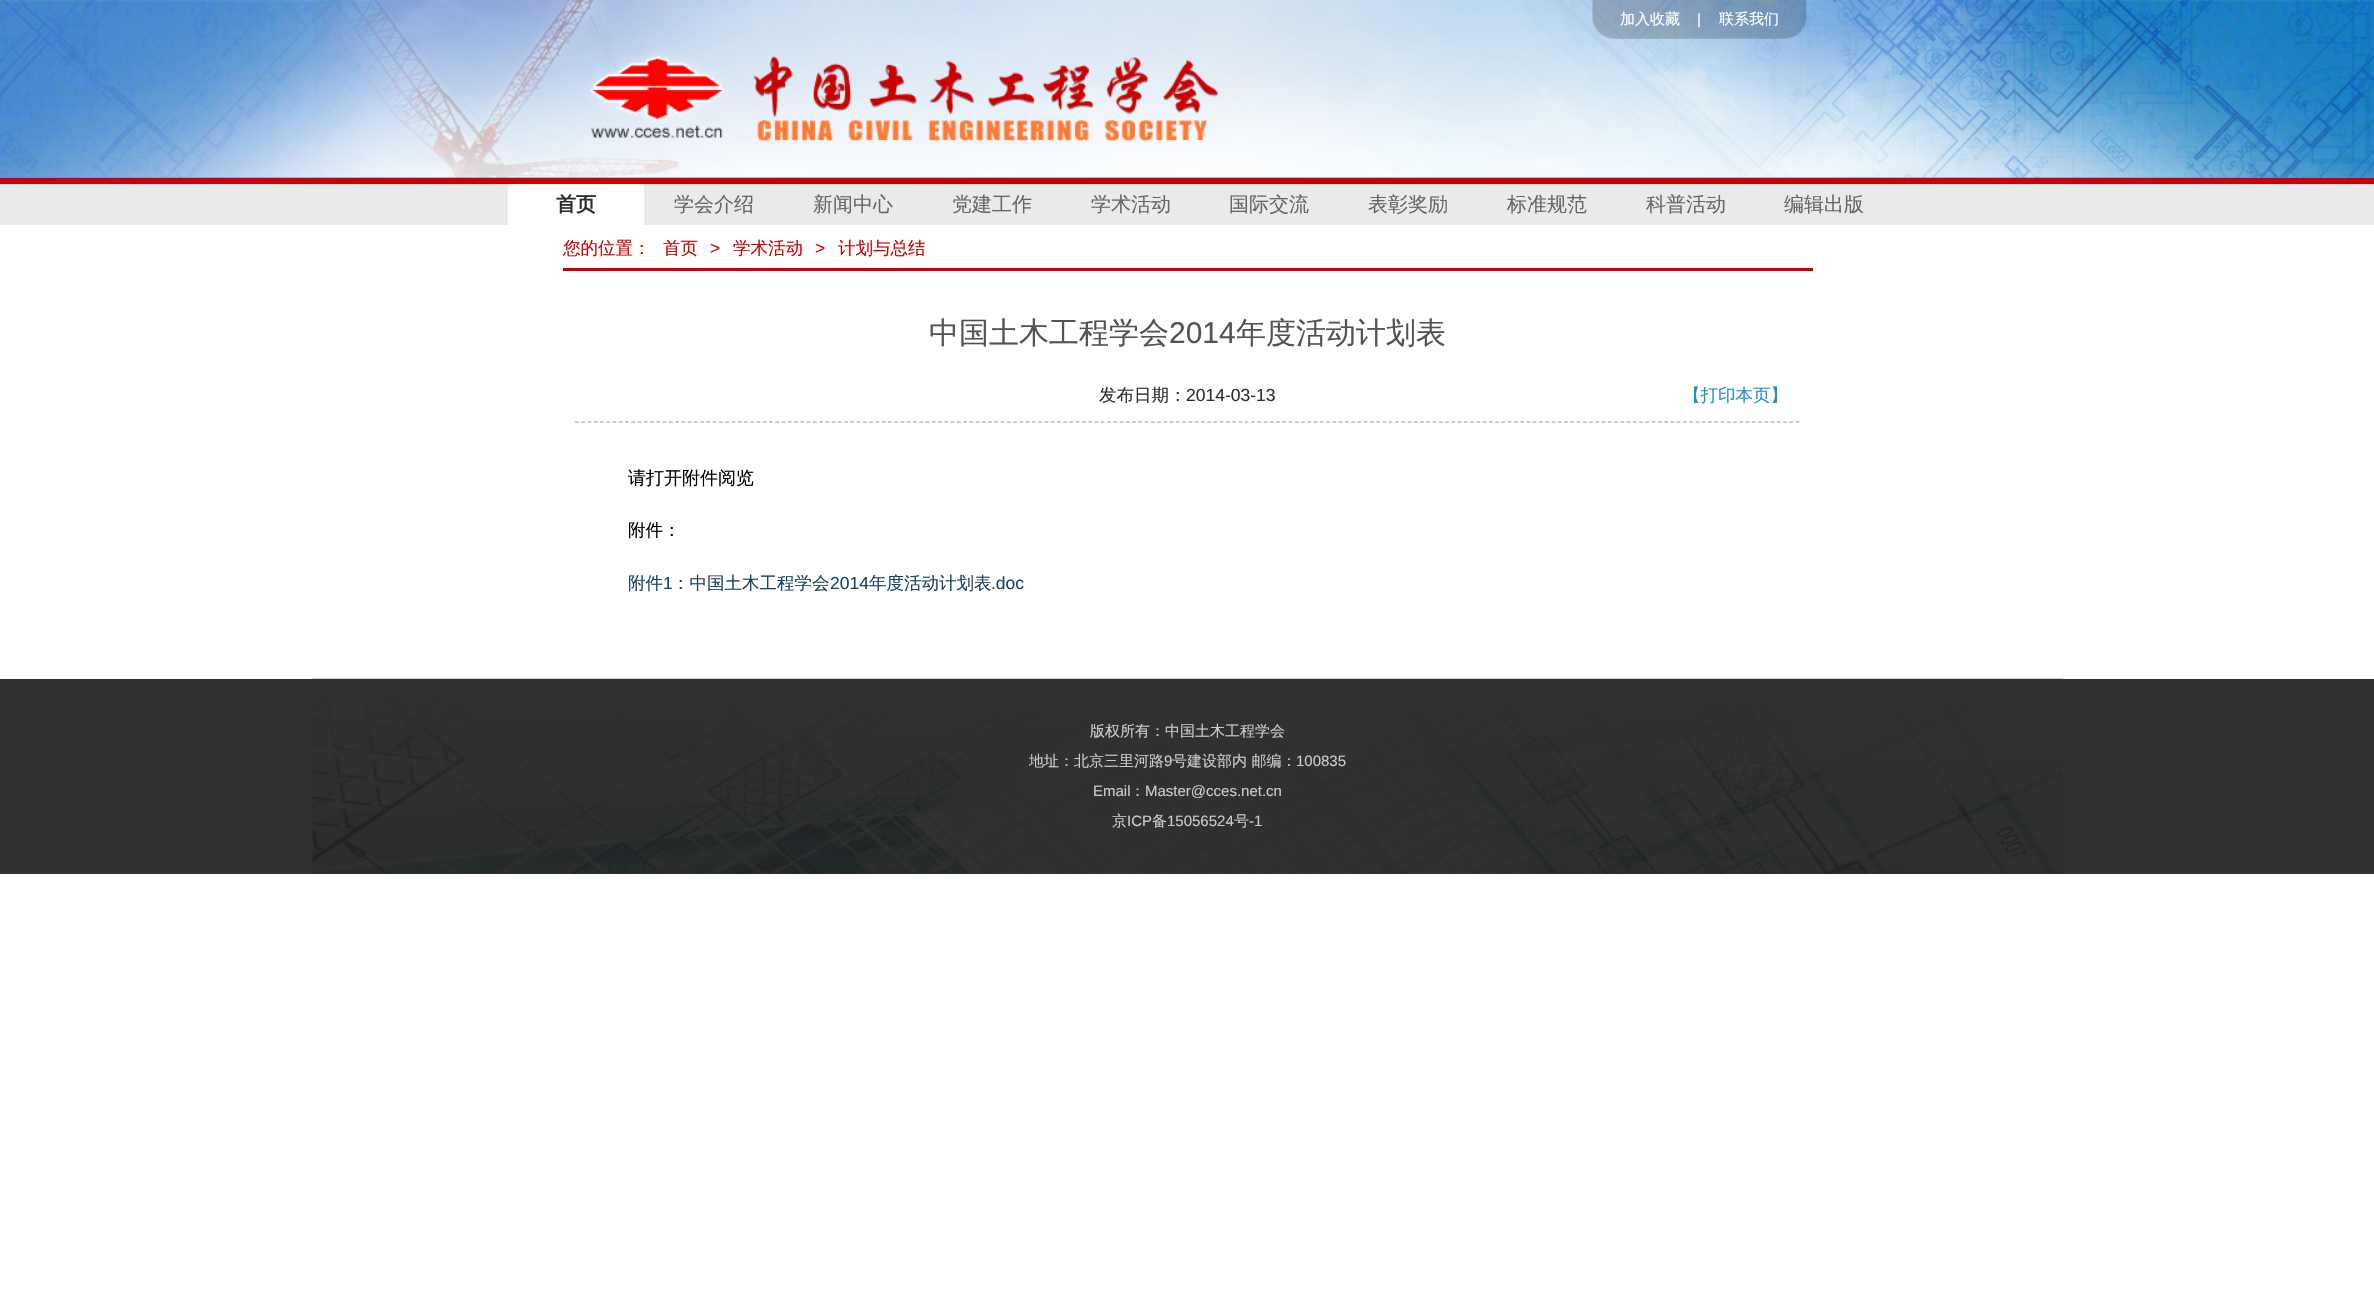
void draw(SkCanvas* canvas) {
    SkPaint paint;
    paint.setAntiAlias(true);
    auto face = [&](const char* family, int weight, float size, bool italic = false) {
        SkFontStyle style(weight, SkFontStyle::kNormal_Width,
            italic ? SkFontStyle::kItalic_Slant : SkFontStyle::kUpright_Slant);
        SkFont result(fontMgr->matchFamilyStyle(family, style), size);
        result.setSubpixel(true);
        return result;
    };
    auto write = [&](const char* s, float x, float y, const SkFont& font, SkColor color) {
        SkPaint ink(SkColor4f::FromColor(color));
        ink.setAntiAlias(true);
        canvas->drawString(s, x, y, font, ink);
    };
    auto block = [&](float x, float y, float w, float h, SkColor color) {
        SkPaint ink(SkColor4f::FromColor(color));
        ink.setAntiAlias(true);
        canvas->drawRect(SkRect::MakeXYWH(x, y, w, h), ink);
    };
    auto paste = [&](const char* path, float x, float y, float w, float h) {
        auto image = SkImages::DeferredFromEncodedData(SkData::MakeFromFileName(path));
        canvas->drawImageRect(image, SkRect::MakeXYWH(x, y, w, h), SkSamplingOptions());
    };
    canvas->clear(SK_ColorWHITE);
    block(0, 177, 2374, 1, SkColorSetRGB(78, 144, 208));
    paste("pic1.png", 0, 0, 2374, 178);
    paste("pic2.png", 1592, 0, 215, 39);
    auto kFont1 = face("WenQuanYi Zen Hei", 500, 15);
    write("加入收藏", 1620, 24, kFont1, SK_ColorWHITE);
    auto kFont2 = face("Liberation Sans", 400, 15);
    write("|", 1697, 24, kFont2, SK_ColorWHITE);
    write("联系我们", 1719, 24, kFont1, SK_ColorWHITE);
    block(0, 184, 2374, 41, SkColorSetRGB(234, 234, 234));
    block(0, 178, 2374, 6, SkColorSetRGB(204, 0, 0));
    block(508, 184, 136, 41, SK_ColorWHITE);
    auto kFont3 = face("WenQuanYi Zen Hei", 700, 20);
    write("首页", 556, 211, kFont3, SkColorSetRGB(46, 46, 46));
    auto kFont4 = face("WenQuanYi Zen Hei", 500, 20);
    write("学会介绍", 674, 211, kFont4, SkColorSetRGB(102, 102, 102));
    write("新闻中心", 813, 211, kFont4, SkColorSetRGB(102, 102, 102));
    write("党建工作", 952, 211, kFont4, SkColorSetRGB(102, 102, 102));
    write("学术活动", 1091, 211, kFont4, SkColorSetRGB(102, 102, 102));
    write("国际交流", 1229, 211, kFont4, SkColorSetRGB(102, 102, 102));
    write("表彰奖励", 1368, 211, kFont4, SkColorSetRGB(102, 102, 102));
    write("标准规范", 1507, 211, kFont4, SkColorSetRGB(102, 102, 102));
    write("科普活动", 1646, 211, kFont4, SkColorSetRGB(102, 102, 102));
    write("编辑出版", 1784, 211, kFont4, SkColorSetRGB(102, 102, 102));
    block(563, 268, 1250, 3, SkColorSetRGB(204, 0, 0));
    auto kFont5 = face("WenQuanYi Zen Hei", 500, 17.5f);
    write("您的位置：", 563, 254, kFont5, SkColorSetRGB(204, 0, 0));
    write("首页", 663, 254, kFont5, SkColorSetRGB(204, 0, 0));
    auto kFont6 = face("Liberation Sans", 400, 17.5f);
    write(">", 710, 254, kFont6, SkColorSetRGB(204, 0, 0));
    write("学术活动", 733, 254, kFont5, SkColorSetRGB(204, 0, 0));
    write(">", 815, 254, kFont6, SkColorSetRGB(204, 0, 0));
    write("计划与总结", 838, 254, kFont5, SkColorSetRGB(204, 0, 0));
    auto kFont7 = face("WenQuanYi Zen Hei", 500, 30);
    write("中国土木工程学会", 929, 343, kFont7, SkColorSetRGB(83, 83, 83));
    auto kFont8 = face("Liberation Sans", 400, 30);
    write("2014", 1169, 343, kFont8, SkColorSetRGB(83, 83, 83));
    write("年度活动计划表", 1236, 343, kFont7, SkColorSetRGB(83, 83, 83));
    paint.setStyle(SkPaint::kStroke_Style);
    paint.setStrokeWidth(1.2f);
    paint.setColor(SkColorSetRGB(153, 153, 153));
    paint.setPathEffect(SkDashPathEffect::Make({{3.75f, 2.51f}}, 0));
    canvas->drawPath(SkPathBuilder().moveTo(575, 422).lineTo(1800, 422).detach(), paint);
    paint.setPathEffect(nullptr);
    write("发布日期：", 1099, 401, kFont5, SkColorSetRGB(46, 46, 46));
    write("2014-03-13", 1186, 401, kFont6, SkColorSetRGB(46, 46, 46));
    write("【打印本页】", 1683, 401, kFont5, SkColorSetRGB(33, 142, 206));
    auto kFont9 = face("WenQuanYi Zen Hei", 500, 18);
    write("请打开附件阅览", 628, 484, kFont9, SK_ColorBLACK);
    write("附件：", 628, 536, kFont5, SK_ColorBLACK);
    write("附件", 628, 589, kFont5, SkColorSetRGB(26, 67, 99));
    write("1", 663, 589, kFont6, SkColorSetRGB(26, 67, 99));
    write("：中国土木工程学会", 672, 589, kFont5, SkColorSetRGB(26, 67, 99));
    write("2014", 830, 589, kFont6, SkColorSetRGB(26, 67, 99));
    write("年度活动计划表", 869, 589, kFont5, SkColorSetRGB(26, 67, 99));
    write(".doc", 991, 589, kFont6, SkColorSetRGB(26, 67, 99));
    block(0, 679, 2374, 195, SkColorSetRGB(49, 49, 49));
    paste("pic3.png", 312, 678, 1751, 196);
    write("版权所有：中国土木工程学会", 1090, 736, kFont1, SkColorSetRGB(204, 204, 204));
    write("地址：北京三里河路", 1029, 766, kFont1, SkColorSetRGB(204, 204, 204));
    write("9", 1164, 766, kFont2, SkColorSetRGB(204, 204, 204));
    write("号建设部内 邮编：", 1172, 766, kFont1, SkColorSetRGB(204, 204, 204));
    write("100835", 1296, 766, kFont2, SkColorSetRGB(204, 204, 204));
    write("Email", 1093, 796, kFont2, SkColorSetRGB(204, 204, 204));
    write("：", 1130, 796, kFont1, SkColorSetRGB(204, 204, 204));
    write("Master@cces.net.cn", 1145, 796, kFont2, SkColorSetRGB(204, 204, 204));
    write("京", 1112, 826, kFont1, SkColorSetRGB(204, 204, 204));
    write("ICP", 1127, 826, kFont2, SkColorSetRGB(204, 204, 204));
    write("备", 1152, 826, kFont1, SkColorSetRGB(204, 204, 204));
    write("15056524", 1167, 826, kFont2, SkColorSetRGB(204, 204, 204));
    write("号", 1234, 826, kFont1, SkColorSetRGB(204, 204, 204));
    write("-1", 1249, 826, kFont2, SkColorSetRGB(204, 204, 204));
}
